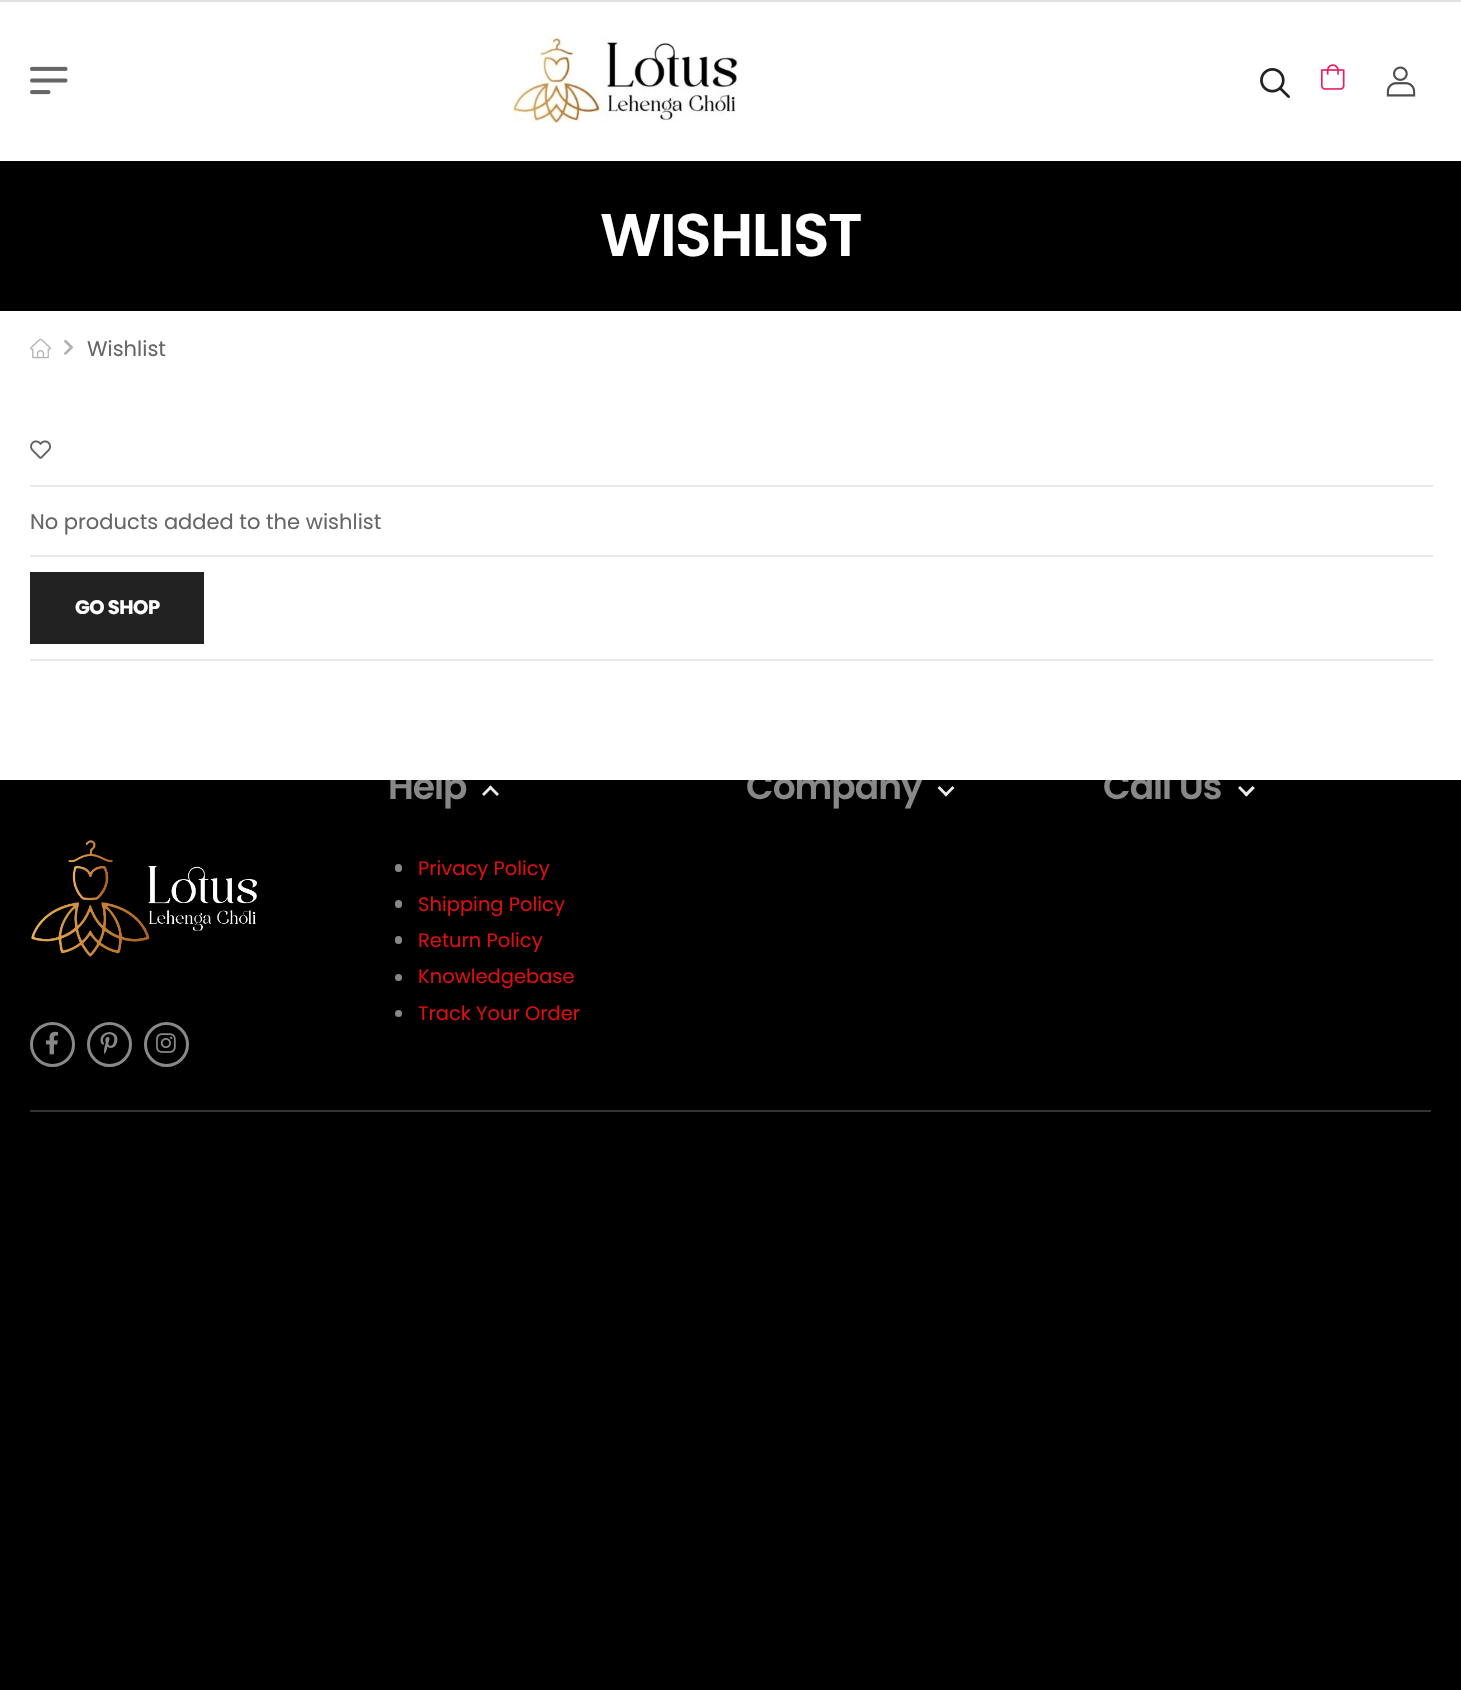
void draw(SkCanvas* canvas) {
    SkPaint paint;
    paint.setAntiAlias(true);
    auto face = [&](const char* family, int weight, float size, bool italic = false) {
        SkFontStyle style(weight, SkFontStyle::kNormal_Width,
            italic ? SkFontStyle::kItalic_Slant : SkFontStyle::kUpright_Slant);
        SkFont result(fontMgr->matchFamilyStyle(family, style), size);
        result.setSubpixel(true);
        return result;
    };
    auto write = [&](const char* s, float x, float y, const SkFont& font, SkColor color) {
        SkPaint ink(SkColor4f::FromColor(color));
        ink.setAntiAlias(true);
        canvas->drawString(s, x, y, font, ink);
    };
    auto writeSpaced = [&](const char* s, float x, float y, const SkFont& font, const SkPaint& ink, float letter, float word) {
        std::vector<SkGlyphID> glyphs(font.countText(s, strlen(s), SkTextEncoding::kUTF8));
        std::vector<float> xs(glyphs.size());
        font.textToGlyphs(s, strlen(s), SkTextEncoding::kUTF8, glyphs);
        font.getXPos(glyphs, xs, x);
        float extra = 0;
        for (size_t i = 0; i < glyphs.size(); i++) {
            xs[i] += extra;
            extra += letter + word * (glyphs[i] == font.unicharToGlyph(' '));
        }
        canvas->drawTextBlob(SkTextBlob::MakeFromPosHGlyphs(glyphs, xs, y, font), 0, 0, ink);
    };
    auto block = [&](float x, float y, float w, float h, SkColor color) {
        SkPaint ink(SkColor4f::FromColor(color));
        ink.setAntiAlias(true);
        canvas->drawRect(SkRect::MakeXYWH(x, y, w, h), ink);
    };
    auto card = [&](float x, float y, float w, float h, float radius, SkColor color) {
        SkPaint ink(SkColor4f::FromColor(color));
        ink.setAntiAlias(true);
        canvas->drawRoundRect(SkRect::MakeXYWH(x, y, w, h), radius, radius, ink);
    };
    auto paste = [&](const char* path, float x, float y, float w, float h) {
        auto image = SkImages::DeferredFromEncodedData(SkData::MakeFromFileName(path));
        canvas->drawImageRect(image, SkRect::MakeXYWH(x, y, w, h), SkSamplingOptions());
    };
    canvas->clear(SK_ColorWHITE);
    block(0, 0, 1461, 2, SkColorSetRGB(225, 225, 225));
    paste("pic1.png", 30, 66, 38, 29);
    paste("pic2.png", 513, 37, 225, 86);
    paste("pic3.png", 1260, 68, 30, 30);
    paste("pic4.png", 1320, 64, 25, 26);
    paste("pic5.png", 1386, 66, 30, 31);
    block(0, 161, 1461, 150, SK_ColorBLACK);
    auto kFont1 = face("Poppins", 600, 60);
    paint.setColor(SK_ColorWHITE);
    writeSpaced("WISHLIST", 600, 256, kFont1, paint, -1.5f, 0);
    paste("pic6.png", 30, 338, 21, 21);
    paste("pic7.png", 64, 339, 10, 16);
    auto kFont2 = face("Poppins", 400, 21);
    write("Wishlist", 87, 356, kFont2, SkColorSetRGB(102, 102, 102));
    block(30, 485, 1403, 2, SkColorSetRGB(233, 233, 233));
    paste("pic8.png", 30, 440, 21, 19);
    block(30, 555, 1403, 2, SkColorSetRGB(233, 233, 233));
    write("No products added to the wishlist", 30, 529, kFont2, SkColorSetRGB(102, 102, 102));
    block(30, 659, 1403, 2, SkColorSetRGB(233, 233, 233));
    block(30, 572, 174, 72, SkColorSetRGB(34, 34, 34));
    auto kFont3 = face("Poppins", 700, 19.5f);
    writeSpaced("GO SHOP", 75, 614, kFont3, paint, -0.5f, 0);
    block(0, 780, 1461, 910, SK_ColorBLACK);
    canvas->save();
    canvas->clipRect(SkRect::MakeXYWH(0, 780, 1461, 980));
    auto kFont4 = face("Poppins", 600, 36);
    paint.setColor(SkColorSetRGB(136, 136, 136));
    writeSpaced("Help", 388, 799, kFont4, paint, -1, 0);
    canvas->restore();
    paint.setColor(SkColorSetRGB(235, 235, 235));
    canvas->drawPath(SkPathBuilder().moveTo(490.5f, 785.5f).lineTo(499, 794).lineTo(497, 796).lineTo(488.5f, 787.5f).close().detach(), paint);
    canvas->drawPath(SkPathBuilder().moveTo(490.5f, 785.5f).lineTo(492.5f, 787.5f).lineTo(484, 796).lineTo(482, 794).close().detach(), paint);
    card(395, 864, 7, 8, 3.5f, SkColorSetRGB(136, 136, 136));
    auto kFont5 = face("Poppins", 400, 19.5f);
    write("Privacy Policy", 418, 875, kFont5, SkColorSetRGB(220, 14, 14));
    card(395, 900, 7, 8, 3.5f, SkColorSetRGB(136, 136, 136));
    write("Shipping Policy", 418, 911, kFont5, SkColorSetRGB(220, 14, 14));
    card(395, 936, 7, 8, 3.5f, SkColorSetRGB(136, 136, 136));
    write("Return Policy", 418, 947, kFont5, SkColorSetRGB(220, 14, 14));
    paint.setColor(SkColorSetRGB(136, 136, 136));
    canvas->drawCircle(398.5f, 977.5f, 3.5f, paint);
    write("Knowledgebase", 418, 983, kFont5, SkColorSetRGB(220, 14, 14));
    canvas->drawCircle(398.5f, 1013.5f, 3.5f, paint);
    write("Track Your Order", 418, 1020, kFont5, SkColorSetRGB(220, 14, 14));
    canvas->save();
    canvas->clipRect(SkRect::MakeXYWH(0, 780, 1461, 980));
    writeSpaced("Company", 746, 799, kFont4, paint, -1, 0);
    canvas->restore();
    paint.setColor(SkColorSetRGB(235, 235, 235));
    canvas->drawPath(SkPathBuilder().moveTo(952.5f, 786).lineTo(954.5f, 788).lineTo(946, 796.5f).lineTo(944, 794.5f).close().detach(), paint);
    canvas->drawPath(SkPathBuilder().moveTo(939.5f, 786).lineTo(948, 794.5f).lineTo(946, 796.5f).lineTo(937.5f, 788).close().detach(), paint);
    canvas->save();
    canvas->clipRect(SkRect::MakeXYWH(0, 780, 1461, 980));
    paint.setColor(SkColorSetRGB(136, 136, 136));
    writeSpaced("Call Us", 1103, 799, kFont4, paint, -1, 0);
    canvas->restore();
    paint.setColor(SkColorSetRGB(235, 235, 235));
    canvas->drawPath(SkPathBuilder().moveTo(1252.5f, 786).lineTo(1255, 788).lineTo(1246.5f, 796.5f).lineTo(1244, 794.5f).close().detach(), paint);
    canvas->drawPath(SkPathBuilder().moveTo(1240, 786).lineTo(1248.5f, 794.5f).lineTo(1246.5f, 796.5f).lineTo(1238, 788).close().detach(), paint);
    paste("pic9.png", 31, 840, 226, 117);
    paint.setStyle(SkPaint::kStroke_Style);
    paint.setStrokeWidth(3);
    paint.setColor(SkColorSetRGB(136, 136, 136));
    canvas->drawCircle(52.5f, 1044.5f, 21, paint);
    paste("pic10.png", 46, 1031, 13, 24);
    canvas->drawCircle(109.5f, 1044.5f, 21, paint);
    paste("pic11.png", 100, 1032, 18, 22);
    canvas->drawCircle(166.5f, 1044.5f, 21, paint);
    paste("pic12.png", 156, 1033, 20, 20);
    block(30, 1110, 1401, 2, SkColorSetRGB(51, 51, 51));
}
